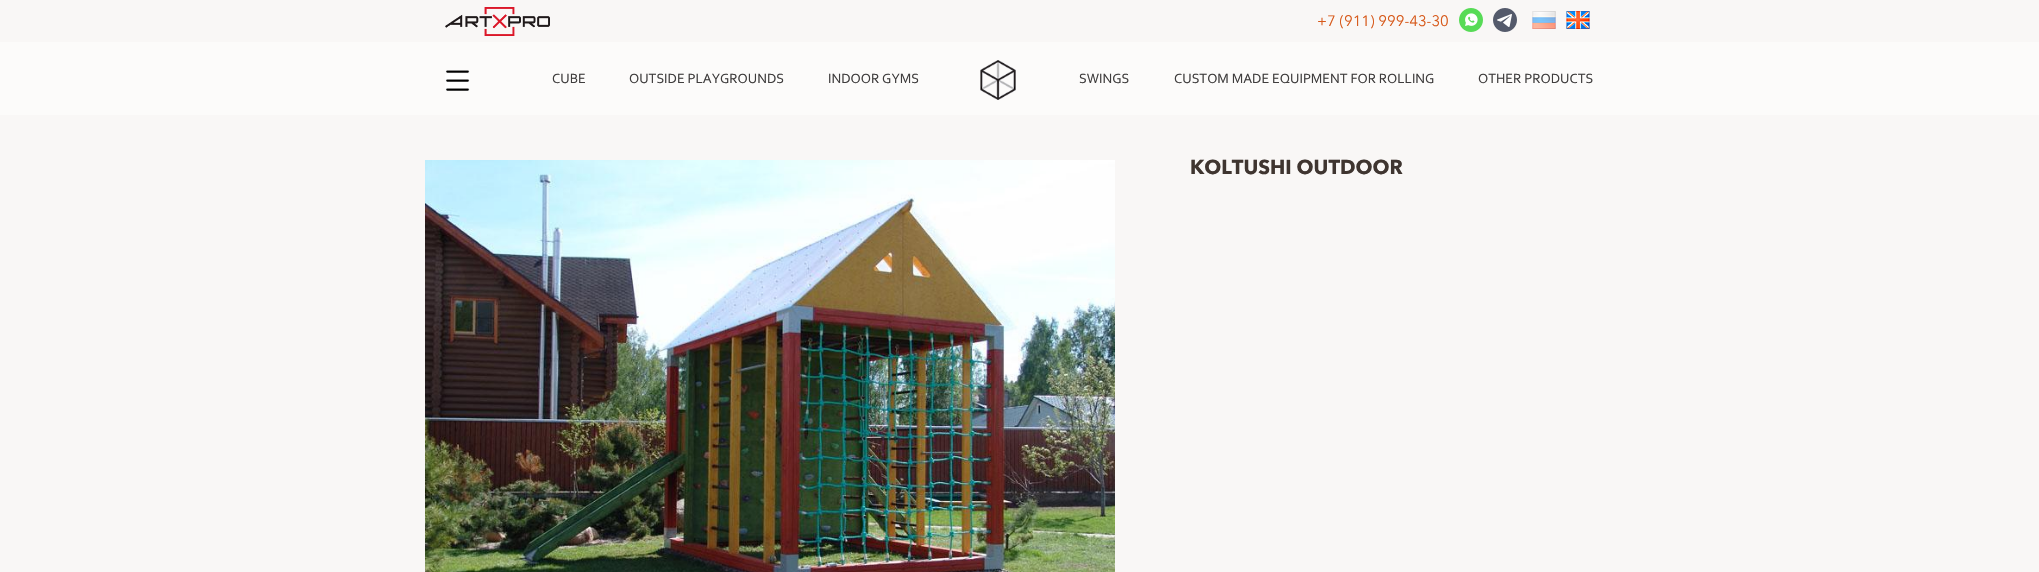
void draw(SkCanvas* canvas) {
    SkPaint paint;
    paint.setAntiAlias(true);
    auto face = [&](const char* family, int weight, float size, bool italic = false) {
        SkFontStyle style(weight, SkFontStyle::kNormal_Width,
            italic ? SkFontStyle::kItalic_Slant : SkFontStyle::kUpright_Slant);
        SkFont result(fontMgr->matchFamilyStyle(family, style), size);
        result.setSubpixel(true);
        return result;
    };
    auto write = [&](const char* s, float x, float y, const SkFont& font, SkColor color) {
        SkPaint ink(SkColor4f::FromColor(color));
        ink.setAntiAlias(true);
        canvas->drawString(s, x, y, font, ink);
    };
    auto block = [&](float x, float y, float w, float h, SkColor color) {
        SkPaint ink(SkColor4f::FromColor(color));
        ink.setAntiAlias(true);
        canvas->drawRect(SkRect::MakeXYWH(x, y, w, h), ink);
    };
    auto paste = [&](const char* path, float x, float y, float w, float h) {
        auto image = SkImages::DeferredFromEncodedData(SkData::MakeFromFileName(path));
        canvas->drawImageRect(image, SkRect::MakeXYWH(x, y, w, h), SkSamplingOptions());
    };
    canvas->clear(SkColorSetRGB(249, 247, 246));
    block(0, 42, 2039, 73, SkColorSetRGB(252, 251, 250));
    paste("pic1.png", 445, 7, 105, 29);
    auto kFont1 = face("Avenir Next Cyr", 400, 15);
    write("+7 (911) 999-43-30", 1317, 26, kFont1, SkColorSetRGB(215, 89, 26));
    paste("pic2.png", 1459, 8, 24, 24);
    paste("pic3.png", 1493, 8, 24, 24);
    paste("pic4.png", 1532, 11, 24, 18);
    paste("pic5.png", 1566, 11, 24, 18);
    paste("pic6.png", 445, 70, 25, 21);
    paste("pic7.png", 980, 60, 36, 40);
    auto kFont2 = face("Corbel", 400, 14);
    write("CUBE", 552, 83, kFont2, SkColorSetRGB(63, 61, 61));
    write("OUTSIDE PLAYGROUNDS", 629, 83, kFont2, SkColorSetRGB(63, 61, 61));
    write("INDOOR GYMS", 828, 83, kFont2, SkColorSetRGB(63, 61, 61));
    write("SWINGS", 1079, 83, kFont2, SkColorSetRGB(63, 61, 61));
    write("CUSTOM MADE EQUIPMENT FOR ROLLING", 1174, 83, kFont2, SkColorSetRGB(63, 61, 61));
    write("OTHER PRODUCTS", 1478, 83, kFont2, SkColorSetRGB(63, 61, 61));
    paste("pic8.png", 425, 160, 690, 412);
    auto kFont3 = face("Avenir Next Cyr", 700, 20);
    write("KOLTUSHI OUTDOOR", 1190, 174, kFont3, SkColorSetRGB(63, 53, 48));
}
